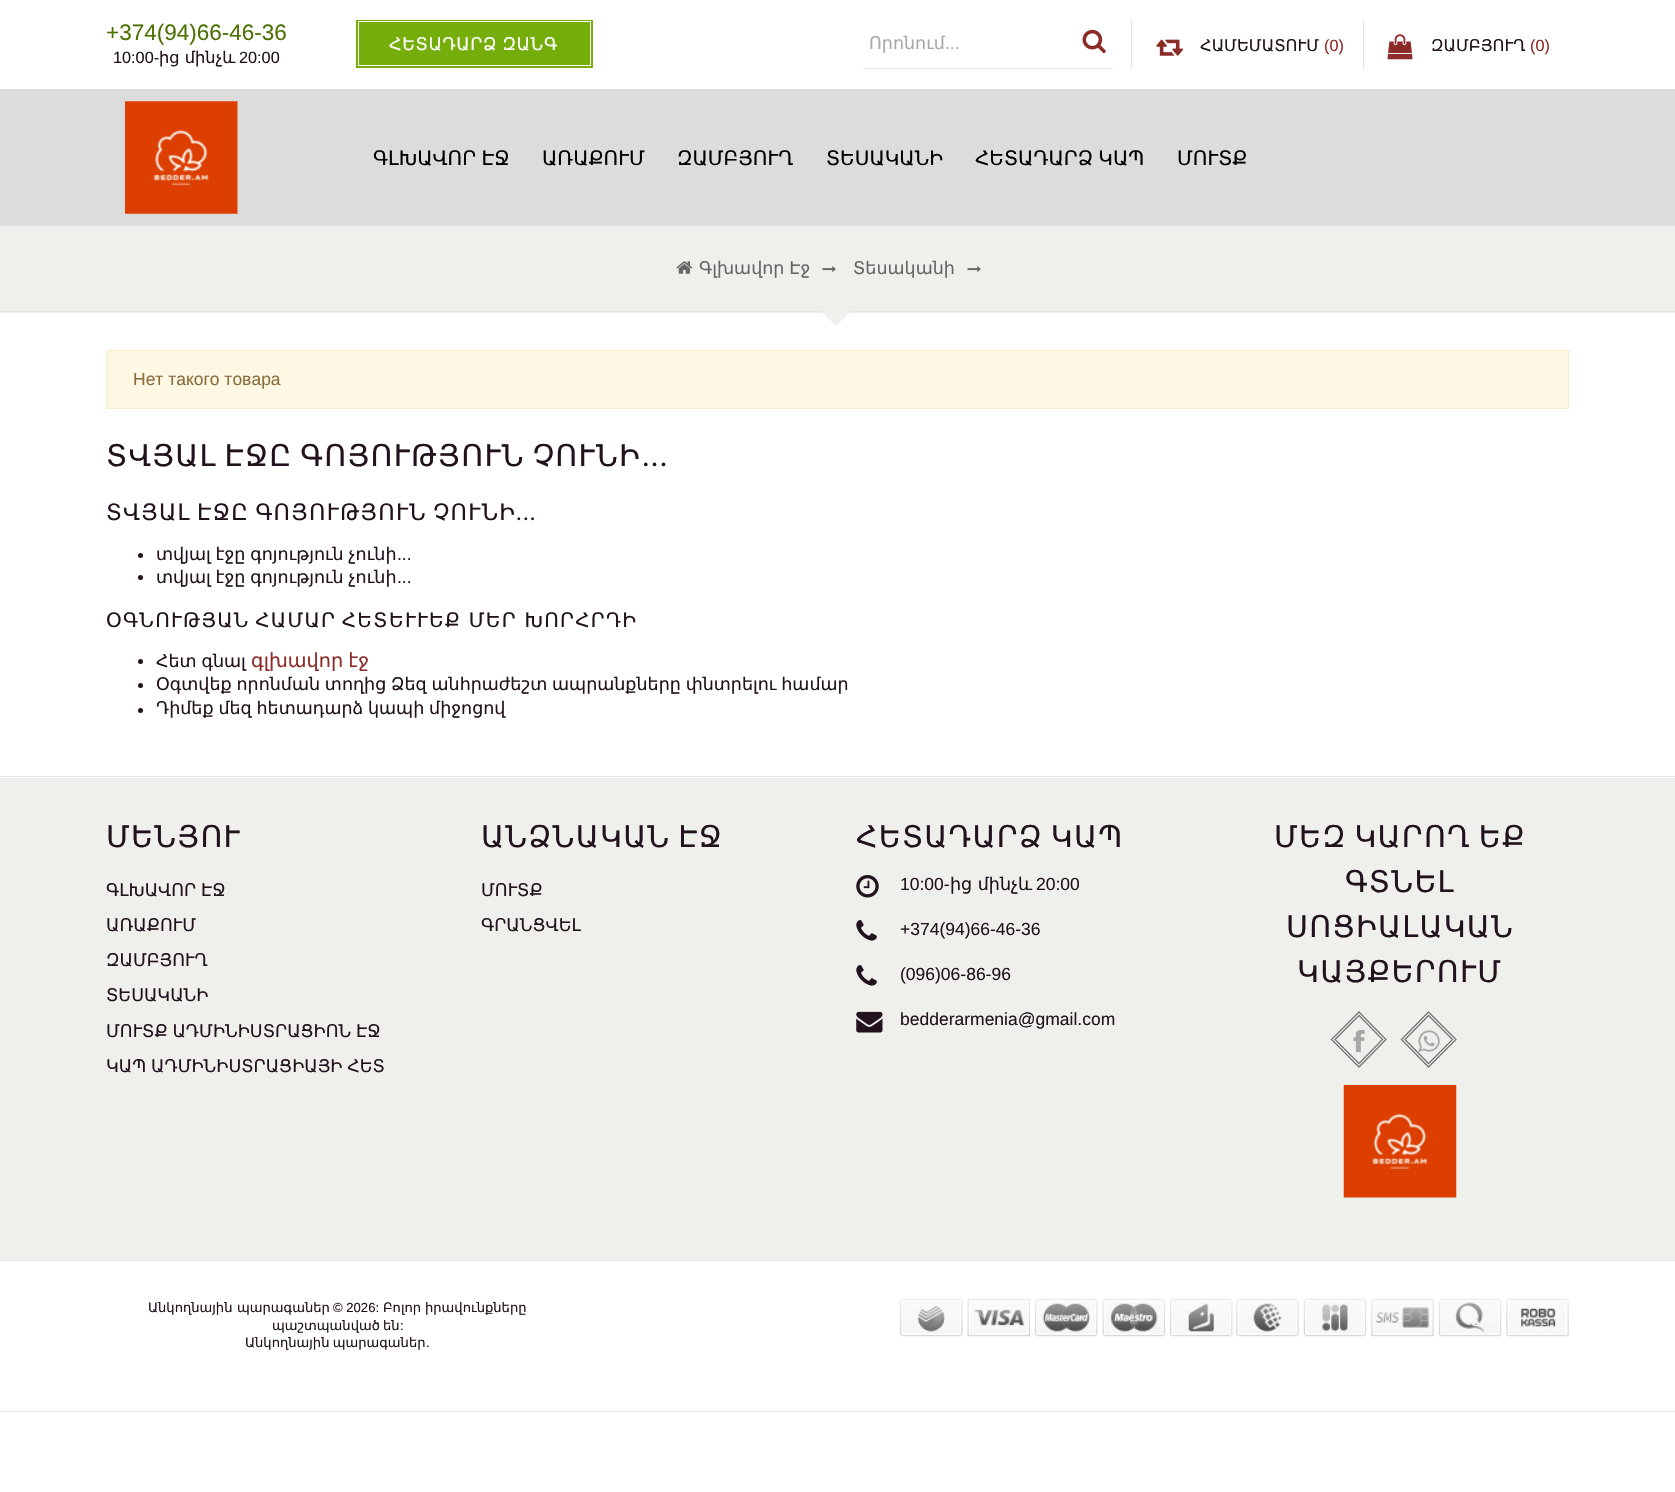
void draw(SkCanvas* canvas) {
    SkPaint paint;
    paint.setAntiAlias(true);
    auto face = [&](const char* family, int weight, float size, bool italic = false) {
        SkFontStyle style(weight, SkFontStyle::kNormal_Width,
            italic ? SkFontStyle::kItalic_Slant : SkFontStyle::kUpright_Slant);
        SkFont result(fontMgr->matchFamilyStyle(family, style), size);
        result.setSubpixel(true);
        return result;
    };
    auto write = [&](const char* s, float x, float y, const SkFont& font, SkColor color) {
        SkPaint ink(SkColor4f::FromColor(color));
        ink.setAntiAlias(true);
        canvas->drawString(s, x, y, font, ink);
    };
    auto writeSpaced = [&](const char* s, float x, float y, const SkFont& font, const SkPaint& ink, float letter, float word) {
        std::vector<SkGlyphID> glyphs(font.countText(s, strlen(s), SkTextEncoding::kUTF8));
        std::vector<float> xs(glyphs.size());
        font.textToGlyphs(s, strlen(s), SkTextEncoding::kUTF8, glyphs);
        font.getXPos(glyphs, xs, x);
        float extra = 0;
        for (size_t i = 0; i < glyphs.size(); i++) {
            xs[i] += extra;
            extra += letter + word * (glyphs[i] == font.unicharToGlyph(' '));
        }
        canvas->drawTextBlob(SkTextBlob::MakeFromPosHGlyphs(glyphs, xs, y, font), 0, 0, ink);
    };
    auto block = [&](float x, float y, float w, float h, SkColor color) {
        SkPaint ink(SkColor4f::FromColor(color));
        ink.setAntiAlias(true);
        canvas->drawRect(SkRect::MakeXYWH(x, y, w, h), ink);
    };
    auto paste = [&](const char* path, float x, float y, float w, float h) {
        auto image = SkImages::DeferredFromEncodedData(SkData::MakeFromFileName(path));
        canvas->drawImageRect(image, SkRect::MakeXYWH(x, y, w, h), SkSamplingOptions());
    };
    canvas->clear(SK_ColorWHITE);
    auto kFont1 = face("Liberation Sans", 400, 22.5f);
    write("+374(94)66-46-36", 106, 40, kFont1, SkColorSetRGB(75, 113, 3));
    auto kFont2 = face("Liberation Sans", 400, 16.25f);
    write("10:00-", 113, 63, kFont2, SkColorSetRGB(34, 18, 30));
    auto kFont3 = face("DejaVu Sans", 400, 16.25f);
    write("ից մինչև", 159, 63, kFont3, SkColorSetRGB(34, 18, 30));
    write("20:00", 239, 63, kFont2, SkColorSetRGB(34, 18, 30));
    block(356, 20, 237, 48, SkColorSetRGB(117, 174, 10));
    paint.setStyle(SkPaint::kStroke_Style);
    paint.setStrokeWidth(1);
    paint.setColor(SK_ColorWHITE);
    canvas->drawRect(SkRect::MakeXYWH(358.5f, 21.5f, 232, 44), paint);
    auto kFont4 = face("DejaVu Sans", 400, 17.5f);
    paint.setStyle(SkPaint::kFill_Style);
    writeSpaced("ՀԵՏԱԴԱՐՁ ԶԱՆԳ", 389, 50, kFont4, paint, 0.6f, -0.75f);
    block(1131, 19, 1, 50, SkColorSetRGB(229, 229, 229));
    block(863, 68, 250, 1, SkColorSetRGB(229, 229, 229));
    write("Որոնում", 869, 49, kFont4, SkColorSetRGB(169, 169, 169));
    auto kFont5 = face("Liberation Sans", 400, 17.5f);
    write("...", 945, 49, kFont5, SkColorSetRGB(169, 169, 169));
    paste("pic1.png", 1082, 29, 24, 24);
    block(1363, 20, 1, 50, SkColorSetRGB(229, 229, 229));
    paste("pic2.png", 1156, 39, 27, 17);
    write("ՀԱՄԵՄԱՏՈՒՄ", 1200, 51, kFont3, SkColorSetRGB(34, 18, 30));
    write("(0)", 1324, 51, kFont2, SkColorSetRGB(140, 44, 41));
    paste("pic3.png", 1387, 34, 26, 26);
    write("ԶԱՄԲՅՈՒՂ", 1431, 51, kFont3, SkColorSetRGB(34, 18, 30));
    write("(0)", 1530, 51, kFont2, SkColorSetRGB(140, 44, 41));
    block(0, 89, 1675, 137, SkColorSetRGB(220, 220, 220));
    paste("pic4.png", 125, 101, 113, 113);
    auto kFont6 = face("DejaVu Sans", 400, 20);
    paint.setColor(SK_ColorBLACK);
    writeSpaced("ԳԼԽԱՎՈՐ ԷՋ", 373, 165, kFont6, paint, 0, -1);
    write("ԱՌԱՔՈՒՄ", 542, 165, kFont6, SK_ColorBLACK);
    write("ԶԱՄԲՅՈՒՂ", 677, 165, kFont6, SK_ColorBLACK);
    write("ՏԵՍԱԿԱՆԻ", 826, 165, kFont6, SK_ColorBLACK);
    writeSpaced("ՀԵՏԱԴԱՐՁ ԿԱՊ", 975, 165, kFont6, paint, 0, -1);
    write("ՄՈՒՏՔ", 1177, 165, kFont6, SK_ColorBLACK);
    block(0, 226, 1675, 87, SkColorSetRGB(239, 239, 236));
    block(0, 311, 1675, 1, SkColorSetRGB(229, 229, 229));
    paste("pic5.png", 676, 261, 17, 13);
    paint.setColor(SkColorSetRGB(102, 102, 102));
    writeSpaced("Գլխավոր Էջ", 699, 274, kFont4, paint, 0, -0.75f);
    paste("pic6.png", 822, 266, 14, 6);
    write("Տեսականի", 853, 274, kFont4, SkColorSetRGB(102, 102, 102));
    paste("pic6.png", 967, 266, 14, 6);
    paint.setColor(SkColorSetRGB(239, 239, 236));
    canvas->drawPath(SkPathBuilder().moveTo(821, 311).lineTo(851, 311).lineTo(836, 326).close().detach(), paint);
    paint.setColor(SkColorSetRGB(252, 248, 227));
    canvas->drawRect(SkRect::MakeXYWH(106.5f, 350.5f, 1462, 58), paint);
    paint.setStyle(SkPaint::kStroke_Style);
    paint.setColor(SkColorSetRGB(250, 235, 204));
    canvas->drawRect(SkRect::MakeXYWH(106.5f, 350.5f, 1462, 58), paint);
    write("Нет такого товара", 133, 385, kFont5, SkColorSetRGB(138, 109, 59));
    auto kFont7 = face("DejaVu Sans", 400, 30);
    paint.setStyle(SkPaint::kFill_Style);
    paint.setColor(SkColorSetRGB(34, 18, 30));
    writeSpaced("ՏՎՅԱԼ ԷՋԸ ԳՈՅՈՒԹՅՈՒՆ ՉՈՒՆԻ", 106, 466, kFont7, paint, 1.25f, -3);
    auto kFont8 = face("Carlito", 400, 30);
    writeSpaced("...", 642, 466, kFont8, paint, 1.25f, 0);
    auto kFont9 = face("DejaVu Sans", 400, 22.5f);
    writeSpaced("ՏՎՅԱԼ ԷՋԸ ԳՈՅՈՒԹՅՈՒՆ ՉՈՒՆԻ", 106, 520, kFont9, paint, 1.25f, -2);
    auto kFont10 = face("Carlito", 400, 22.5f);
    writeSpaced("...", 516, 520, kFont10, paint, 1.25f, 0);
    canvas->drawCircle(140.5f, 555.5f, 2.5f, paint);
    writeSpaced("տվյալ էջը գոյություն չունի", 156, 560, kFont4, paint, 0, -0.75f);
    write("...", 397, 560, kFont5, SkColorSetRGB(34, 18, 30));
    canvas->drawCircle(140.5f, 577.5f, 2.5f, paint);
    writeSpaced("տվյալ էջը գոյություն չունի", 156, 583, kFont4, paint, 0, -0.75f);
    write("...", 397, 583, kFont5, SkColorSetRGB(34, 18, 30));
    writeSpaced("ՕԳՆՈՒԹՅԱՆ ՀԱՄԱՐ ՀԵՏ", 106, 627, kFont6, paint, 1.25f, -2);
    writeSpaced("ԵՒՒԵՔ ՄԵՐ ԽՈՐՀՐԴԻ", 389, 627, kFont6, paint, 1.25f, 0);
    canvas->drawCircle(140.5f, 661.5f, 2.5f, paint);
    writeSpaced("Հետ գնալ", 156, 667, kFont4, paint, 0, -0.75f);
    auto kFont11 = face("DejaVu Sans", 400, 19.25f);
    paint.setColor(SkColorSetRGB(140, 44, 41));
    writeSpaced("գլխավոր էջ", 251, 667, kFont11, paint, 0, -1);
    paint.setColor(SkColorSetRGB(34, 18, 30));
    canvas->drawCircle(140.5f, 685.5f, 2.5f, paint);
    writeSpaced("Օգտվեք որոնման տողից Ձեզ անհրաժեշտ ապրանքները փնտրելու համար", 156, 690, kFont4, paint, 0, -0.75f);
    canvas->drawCircle(140.5f, 710.5f, 2.5f, paint);
    writeSpaced("Դիմեք մեզ հետադարձ կապի միջոցով", 156, 714, kFont4, paint, 0, -0.75f);
    block(0, 776, 1675, 1, SkColorSetRGB(229, 229, 229));
    block(0, 1411, 1675, 1, SkColorSetRGB(229, 229, 229));
    block(0, 778, 1675, 482, SkColorSetRGB(239, 239, 236));
    writeSpaced("ՄԵՆՅՈՒ", 106, 847, kFont7, paint, 1.25f, 0);
    writeSpaced("ԳԼԽԱՎՈՐ ԷՋ", 106, 896, kFont4, paint, 0, -0.75f);
    write("ԱՌԱՔՈՒՄ", 106, 931, kFont4, SkColorSetRGB(34, 18, 30));
    write("ԶԱՄԲՅՈՒՂ", 106, 966, kFont4, SkColorSetRGB(34, 18, 30));
    write("ՏԵՍԱԿԱՆԻ", 106, 1001, kFont4, SkColorSetRGB(34, 18, 30));
    writeSpaced("ՄՈՒՏՔ ԱԴՄԻՆԻՍՏՐԱՑԻՈՆ ԷՋ", 106, 1037, kFont4, paint, 0, -0.75f);
    writeSpaced("ԿԱՊ ԱԴՄԻՆԻՍՏՐԱՑԻԱՅԻ ՀԵՏ", 106, 1072, kFont4, paint, 0, -0.75f);
    writeSpaced("ԱՆՁՆԱԿԱՆ ԷՋ", 481, 847, kFont7, paint, 1.25f, -3);
    write("ՄՈՒՏՔ", 481, 896, kFont4, SkColorSetRGB(34, 18, 30));
    write("ԳՐԱՆՑՎԵԼ", 481, 931, kFont4, SkColorSetRGB(34, 18, 30));
    writeSpaced("ՀԵՏԱԴԱՐՁ ԿԱՊ", 856, 847, kFont7, paint, 1.25f, -3);
    paste("pic7.png", 856, 875, 23, 23);
    write("10:00-", 900, 890, kFont5, SkColorSetRGB(34, 18, 30));
    write("ից մինչև", 950, 890, kFont4, SkColorSetRGB(34, 18, 30));
    write("20:00", 1036, 890, kFont5, SkColorSetRGB(34, 18, 30));
    paste("pic8.png", 856, 920, 21, 21);
    write("+374(94)66-46-36", 900, 935, kFont5, SkColorSetRGB(34, 18, 30));
    paste("pic8.png", 856, 965, 21, 21);
    write("(096)06-86-96", 900, 980, kFont5, SkColorSetRGB(34, 18, 30));
    paste("pic9.png", 856, 1011, 27, 22);
    write("bedderarmenia@gmail.com", 900, 1025, kFont5, SkColorSetRGB(34, 18, 30));
    writeSpaced("ՄԵԶ ԿԱՐՈՂ ԵՔ", 1274, 847, kFont7, paint, 1.25f, -3);
    writeSpaced("ԳՏՆԵԼ", 1345, 892, kFont7, paint, 1.25f, 0);
    writeSpaced("ՍՈՑԻԱԼԱԿԱՆ", 1286, 937, kFont7, paint, 1.25f, 0);
    writeSpaced("ԿԱՅՔԵՐՈՒՄ", 1297, 982, kFont7, paint, 1.25f, 0);
    paint.setStyle(SkPaint::kStroke_Style);
    paint.setStrokeWidth(1.3f);
    paint.setColor(SkColorSetRGB(119, 119, 119));
    canvas->drawPath(SkPathBuilder().moveTo(1359, 1012).lineTo(1386, 1039.5f).lineTo(1359, 1067).lineTo(1331.5f, 1039.5f).close().moveTo(1359, 1015.5f).lineTo(1382.5f, 1039.5f).lineTo(1359, 1063.5f).lineTo(1335, 1039.5f).close().detach(), paint);
    paste("pic10.png", 1353, 1030, 12, 23);
    canvas->drawPath(SkPathBuilder().moveTo(1428.5f, 1012).lineTo(1456, 1039.5f).lineTo(1428.5f, 1067).lineTo(1401.5f, 1039.5f).close().moveTo(1428.5f, 1015.5f).lineTo(1452.5f, 1039.5f).lineTo(1428.5f, 1063.5f).lineTo(1405, 1039.5f).close().detach(), paint);
    paste("pic11.png", 1418, 1030, 22, 22);
    paste("pic12.png", 1343, 1085, 114, 113);
    block(0, 1260, 1675, 1, SkColorSetRGB(229, 229, 229));
    auto kFont12 = face("DejaVu Sans", 400, 13.1f);
    write("Անկողնային", 148, 1312, kFont12, SkColorSetRGB(34, 18, 30));
    write("պարագաներ", 237, 1312, kFont12, SkColorSetRGB(34, 18, 30));
    auto kFont13 = face("Liberation Sans", 400, 13.1f);
    write("© 2026:", 333, 1312, kFont13, SkColorSetRGB(34, 18, 30));
    write("Բոլոր", 383, 1312, kFont12, SkColorSetRGB(34, 18, 30));
    write("իրավունքները", 425, 1312, kFont12, SkColorSetRGB(34, 18, 30));
    paint.setStyle(SkPaint::kFill_Style);
    paint.setColor(SkColorSetRGB(34, 18, 30));
    writeSpaced("պաշտպանված են", 272, 1330, kFont12, paint, 0, -1);
    write(":", 400, 1330, kFont13, SkColorSetRGB(34, 18, 30));
    writeSpaced("Անկողնային պարագաներ", 245, 1347, kFont12, paint, 0, -1);
    write(".", 426, 1347, kFont13, SkColorSetRGB(34, 18, 30));
    paste("pic13.png", 900, 1298, 63, 39);
    paste("pic14.png", 967, 1298, 63, 39);
    paste("pic15.png", 1035, 1298, 63, 39);
    paste("pic16.png", 1102, 1298, 63, 39);
    paste("pic17.png", 1170, 1298, 63, 39);
    paste("pic18.png", 1236, 1298, 63, 39);
    paste("pic19.png", 1303, 1298, 64, 39);
    paste("pic20.png", 1371, 1298, 63, 39);
    paste("pic21.png", 1438, 1298, 64, 39);
    paste("pic22.png", 1506, 1298, 63, 39);
}
